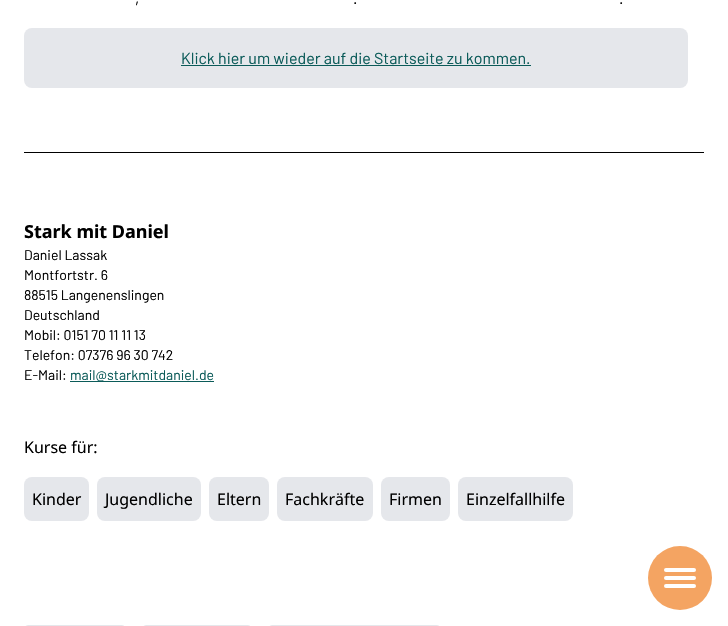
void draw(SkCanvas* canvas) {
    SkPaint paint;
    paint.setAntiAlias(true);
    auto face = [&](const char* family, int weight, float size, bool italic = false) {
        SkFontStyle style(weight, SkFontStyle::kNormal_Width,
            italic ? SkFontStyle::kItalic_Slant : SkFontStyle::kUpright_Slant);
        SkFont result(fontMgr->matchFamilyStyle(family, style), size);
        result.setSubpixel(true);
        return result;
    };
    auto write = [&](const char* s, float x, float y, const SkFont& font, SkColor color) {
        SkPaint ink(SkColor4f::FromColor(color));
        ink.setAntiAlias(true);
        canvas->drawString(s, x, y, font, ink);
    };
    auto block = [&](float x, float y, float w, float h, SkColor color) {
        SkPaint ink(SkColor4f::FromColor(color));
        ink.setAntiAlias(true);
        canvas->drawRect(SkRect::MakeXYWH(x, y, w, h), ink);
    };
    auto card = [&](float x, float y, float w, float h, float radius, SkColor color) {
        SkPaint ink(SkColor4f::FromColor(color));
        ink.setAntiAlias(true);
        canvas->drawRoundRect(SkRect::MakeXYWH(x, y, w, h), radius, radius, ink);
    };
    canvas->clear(SK_ColorWHITE);
    auto kFont1 = face("Barlow", 400, 16);
    write(",", 135, 4, kFont1, SK_ColorBLACK);
    write(".", 353, 4, kFont1, SK_ColorBLACK);
    write(".", 619, 4, kFont1, SK_ColorBLACK);
    card(24, 28, 664, 60, 8, SkColorSetRGB(229, 231, 235));
    write("Klick hier um wieder auf die Startseite zu kommen.", 181, 64, kFont1, SkColorSetRGB(11, 91, 89));
    block(181, 65, 350, 1, SkColorSetRGB(11, 91, 89));
    block(24, 152, 680, 1, SK_ColorBLACK);
    auto kFont2 = face("Noto Sans", 700, 18);
    write("Stark mit Daniel", 24, 238, kFont2, SK_ColorBLACK);
    auto kFont3 = face("Barlow", 400, 14);
    write("Daniel Lassak", 24, 260, kFont3, SK_ColorBLACK);
    write("Montfortstr. 6", 24, 280, kFont3, SK_ColorBLACK);
    write("88515 Langenenslingen", 24, 300, kFont3, SK_ColorBLACK);
    write("Deutschland", 24, 320, kFont3, SK_ColorBLACK);
    write("Mobil: 0151 70 11 11 13", 24, 340, kFont3, SK_ColorBLACK);
    write("Telefon: 07376 96 30 742", 24, 360, kFont3, SK_ColorBLACK);
    write("E-Mail:", 24, 380, kFont3, SK_ColorBLACK);
    block(70, 381, 144, 1, SkColorSetRGB(11, 91, 89));
    write("mail@starkmitdaniel.de", 70, 380, kFont3, SkColorSetRGB(11, 91, 89));
    auto kFont4 = face("Noto Sans", 400, 16);
    write("Kurse für:", 24, 453, kFont4, SK_ColorBLACK);
    card(24, 477, 65, 44, 8, SkColorSetRGB(229, 231, 235));
    write("Kinder", 32, 505, kFont4, SK_ColorBLACK);
    card(97, 477, 104, 44, 8, SkColorSetRGB(229, 231, 235));
    write("Jugendliche", 105, 505, kFont4, SK_ColorBLACK);
    card(209, 477, 60, 44, 8, SkColorSetRGB(229, 231, 235));
    write("Eltern", 217, 505, kFont4, SK_ColorBLACK);
    card(277, 477, 96, 44, 8, SkColorSetRGB(229, 231, 235));
    write("Fachkräfte", 285, 505, kFont4, SK_ColorBLACK);
    card(381, 477, 69, 44, 8, SkColorSetRGB(229, 231, 235));
    write("Firmen", 389, 505, kFont4, SK_ColorBLACK);
    card(458, 477, 115, 44, 8, SkColorSetRGB(229, 231, 235));
    write("Einzelfallhilfe", 466, 505, kFont4, SK_ColorBLACK);
    card(24, 625, 102, 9, 8, SkColorSetRGB(229, 231, 235));
    card(142, 625, 110, 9, 8, SkColorSetRGB(229, 231, 235));
    card(268, 625, 173, 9, 8, SkColorSetRGB(229, 231, 235));
    paint.setColor(SkColorSetRGB(244, 164, 98));
    canvas->drawCircle(680, 578, 32, paint);
    card(664, 568, 32, 4, 2, SK_ColorWHITE);
    card(664, 576, 32, 4, 2, SK_ColorWHITE);
    card(664, 584, 32, 4, 2, SK_ColorWHITE);
}
